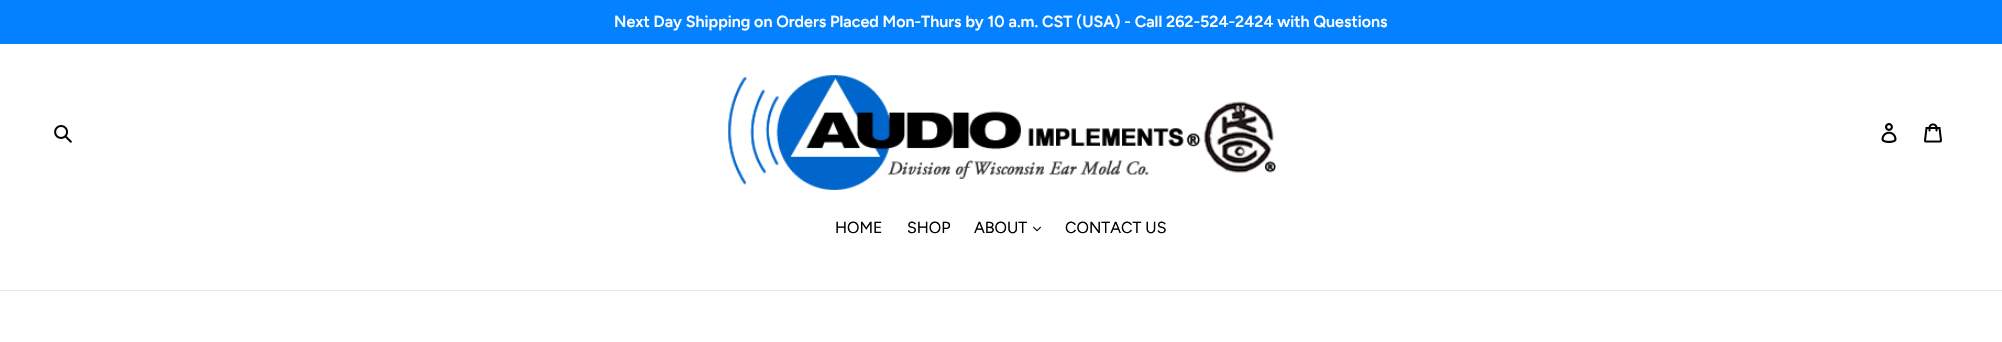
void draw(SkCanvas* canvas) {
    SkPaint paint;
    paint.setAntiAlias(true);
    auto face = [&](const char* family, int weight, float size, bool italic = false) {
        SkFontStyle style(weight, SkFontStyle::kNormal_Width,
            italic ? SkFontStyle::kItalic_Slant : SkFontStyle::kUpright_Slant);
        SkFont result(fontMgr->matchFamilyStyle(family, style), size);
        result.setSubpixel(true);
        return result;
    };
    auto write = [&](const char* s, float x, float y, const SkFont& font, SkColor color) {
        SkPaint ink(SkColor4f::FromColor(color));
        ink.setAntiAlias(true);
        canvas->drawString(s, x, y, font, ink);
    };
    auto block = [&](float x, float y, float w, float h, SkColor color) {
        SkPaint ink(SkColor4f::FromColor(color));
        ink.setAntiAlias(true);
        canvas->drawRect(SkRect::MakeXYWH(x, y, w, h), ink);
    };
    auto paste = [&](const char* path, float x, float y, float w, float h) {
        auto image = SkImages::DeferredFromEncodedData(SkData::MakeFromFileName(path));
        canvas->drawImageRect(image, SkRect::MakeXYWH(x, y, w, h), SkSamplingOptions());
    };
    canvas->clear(SK_ColorWHITE);
    block(0, 0, 2002, 44, SkColorSetRGB(4, 129, 255));
    auto kFont1 = face("Figtree", 600, 16);
    write("Next Day Shipping on Orders Placed Mon-Thurs by 10 a.m. CST (USA) - Call 262-524-2424 with Questions", 614, 27, kFont1, SK_ColorWHITE);
    paste("pic1.png", 54, 125, 18, 18);
    paste("pic2.png", 728, 75, 548, 115);
    paste("pic3.png", 1881, 123, 16, 20);
    paste("pic4.png", 1924, 123, 18, 20);
    block(0, 290, 2002, 1, SkColorSetRGB(232, 233, 235));
    auto kFont2 = face("Figtree", 400, 16);
    write("HOME", 835, 233, kFont2, SK_ColorBLACK);
    write("SHOP", 907, 233, kFont2, SK_ColorBLACK);
    write("ABOUT", 974, 233, kFont2, SK_ColorBLACK);
    paste("pic5.png", 1033, 226, 8, 6);
    write("CONTACT US", 1065, 233, kFont2, SK_ColorBLACK);
}
